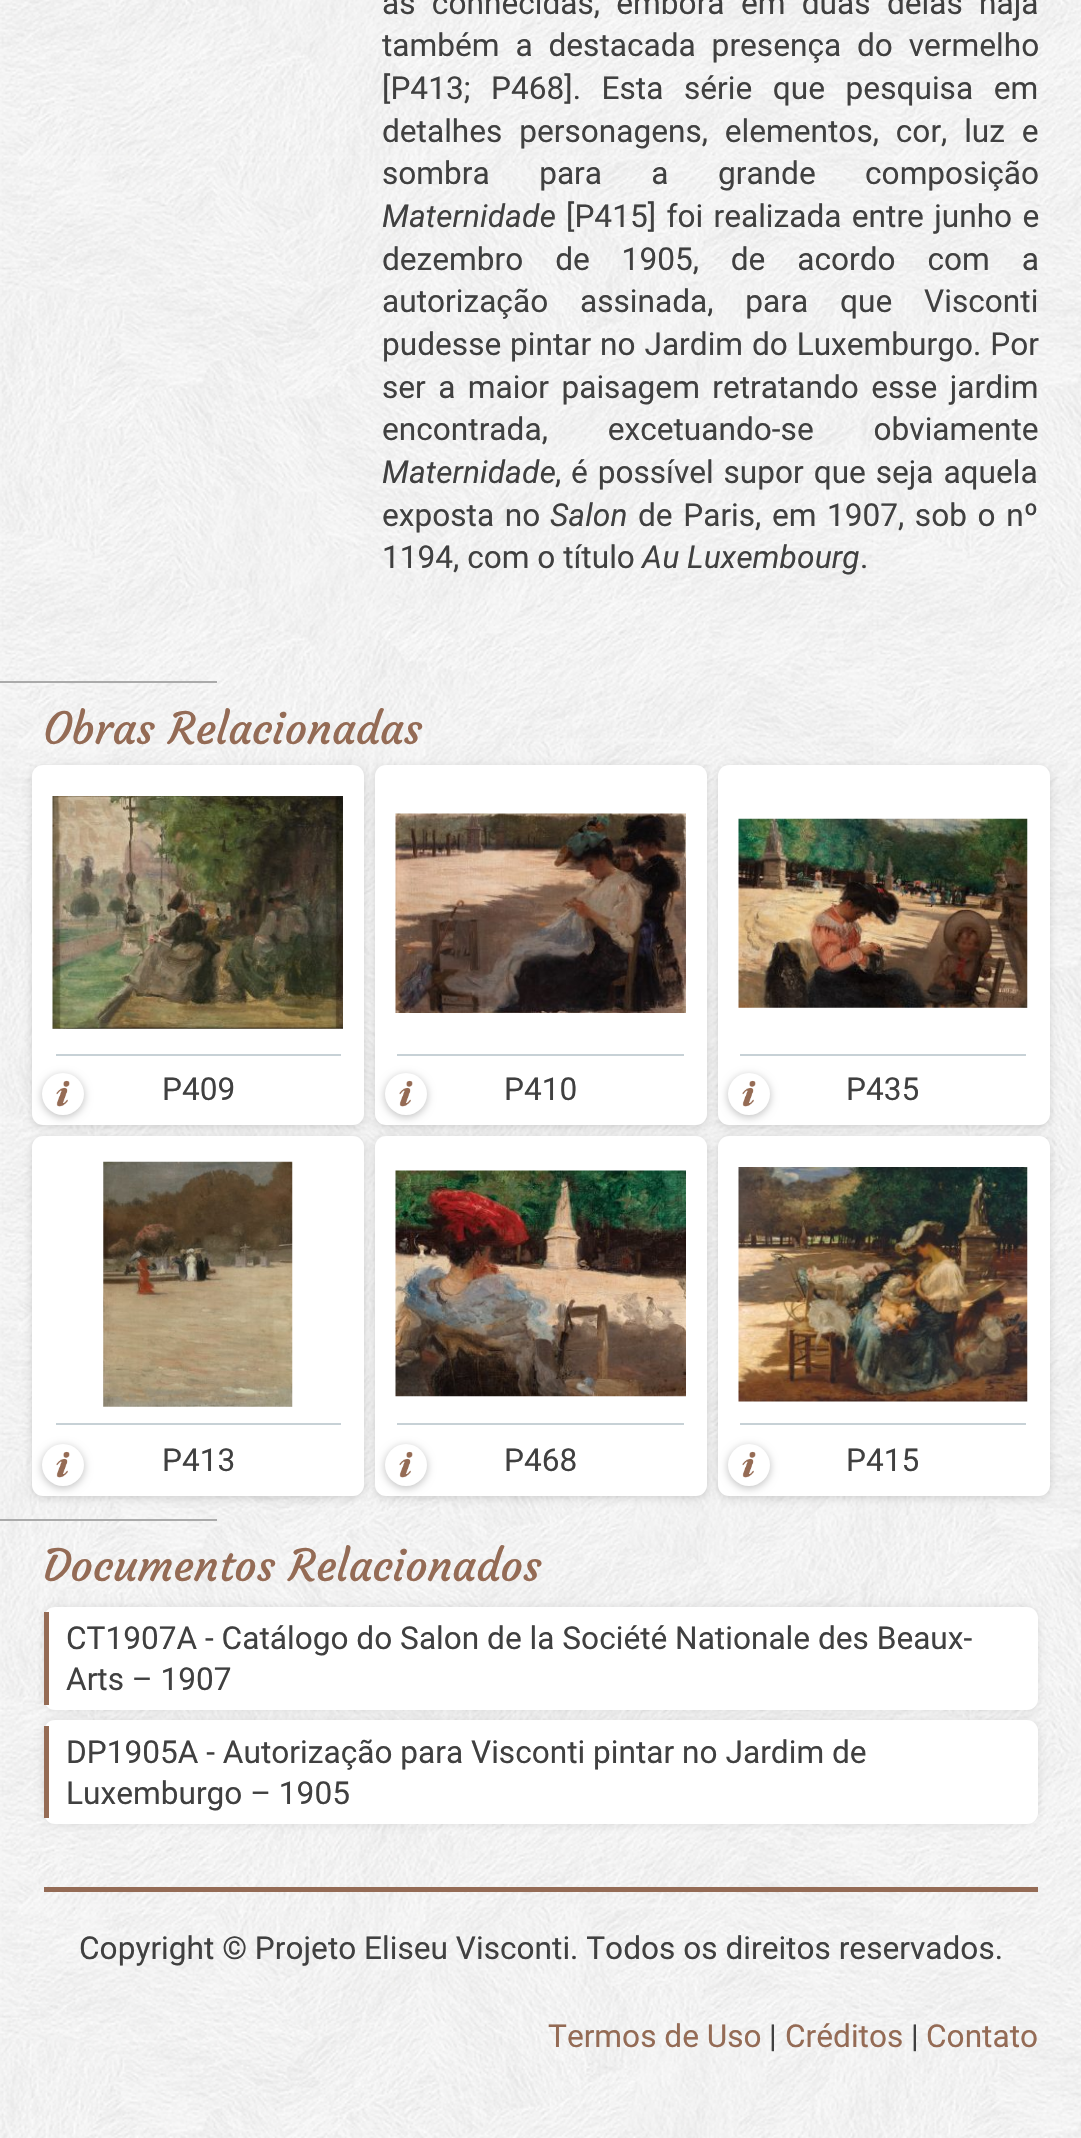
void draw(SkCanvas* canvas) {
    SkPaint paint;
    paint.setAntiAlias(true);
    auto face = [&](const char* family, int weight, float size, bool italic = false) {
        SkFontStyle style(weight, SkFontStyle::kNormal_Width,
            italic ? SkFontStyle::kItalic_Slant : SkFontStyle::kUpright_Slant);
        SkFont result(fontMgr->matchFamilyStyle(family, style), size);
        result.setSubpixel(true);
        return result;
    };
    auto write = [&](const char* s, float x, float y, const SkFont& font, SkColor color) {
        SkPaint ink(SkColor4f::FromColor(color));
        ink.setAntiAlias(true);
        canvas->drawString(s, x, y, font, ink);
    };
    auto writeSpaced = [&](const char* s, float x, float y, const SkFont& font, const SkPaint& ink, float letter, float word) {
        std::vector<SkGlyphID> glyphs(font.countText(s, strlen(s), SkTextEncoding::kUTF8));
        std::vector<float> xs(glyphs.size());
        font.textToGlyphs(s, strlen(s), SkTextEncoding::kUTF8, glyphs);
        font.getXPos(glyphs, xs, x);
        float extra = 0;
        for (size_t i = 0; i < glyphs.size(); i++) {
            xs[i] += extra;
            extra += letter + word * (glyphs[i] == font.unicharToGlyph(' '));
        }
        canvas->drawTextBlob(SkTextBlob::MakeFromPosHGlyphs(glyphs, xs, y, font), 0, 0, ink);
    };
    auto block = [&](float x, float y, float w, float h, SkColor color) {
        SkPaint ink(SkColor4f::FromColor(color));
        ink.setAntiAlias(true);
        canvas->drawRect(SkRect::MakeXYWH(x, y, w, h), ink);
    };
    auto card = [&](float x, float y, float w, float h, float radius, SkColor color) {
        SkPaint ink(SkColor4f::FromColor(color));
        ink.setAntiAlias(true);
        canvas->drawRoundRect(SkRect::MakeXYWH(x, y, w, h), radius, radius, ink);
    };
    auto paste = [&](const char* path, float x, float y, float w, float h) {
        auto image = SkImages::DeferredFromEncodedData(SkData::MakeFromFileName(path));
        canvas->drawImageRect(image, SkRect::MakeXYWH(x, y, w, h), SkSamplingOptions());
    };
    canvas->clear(SK_ColorWHITE);
    paste("pic1.png", 0, 0, 1081, 2138);
    auto kFont1 = face("Roboto", 400, 31.65f);
    paint.setColor(SkColorSetRGB(64, 64, 64));
    writeSpaced("as conhecidas, embora em duas delas haja", 382, 14, kFont1, paint, 0, 8.5f);
    writeSpaced("também a destacada presença do vermelho", 382, 56, kFont1, paint, 0, 8);
    writeSpaced("[P413; P468]. Esta série que pesquisa em", 382, 99, kFont1, paint, 0, 12.75f);
    writeSpaced("detalhes personagens, elementos, cor, luz e", 382, 142, kFont1, paint, 0, 9);
    writeSpaced("sombra para a grande composição", 382, 184, kFont1, paint, 0, 41.5f);
    auto kFont2 = face("Roboto", 400, 31.65f, true);
    write("Maternidade", 382, 227, kFont2, SkColorSetRGB(64, 64, 64));
    writeSpaced("[P415] foi realizada entre junho e", 566, 227, kFont1, paint, 0, 2.5f);
    writeSpaced("dezembro de 1905, de acordo com a", 382, 270, kFont1, paint, 0, 24);
    writeSpaced("autorização assinada, para que Visconti", 382, 312, kFont1, paint, 0, 24);
    writeSpaced("pudesse pintar no Jardim do Luxemburgo. Por", 382, 355, kFont1, paint, 0, 1);
    writeSpaced("ser a maior paisagem retratando esse jardim", 382, 398, kFont1, paint, 0, 4.5f);
    writeSpaced("encontrada, excetuando-se obviamente", 382, 440, kFont1, paint, 0, 52);
    write("Maternidade", 382, 483, kFont2, SkColorSetRGB(64, 64, 64));
    writeSpaced(", é possível supor que seja aquela", 555, 483, kFont1, paint, 0, 2);
    writeSpaced("exposta no", 382, 526, kFont1, paint, 0, 2.75f);
    write("Salon", 550, 526, kFont2, SkColorSetRGB(64, 64, 64));
    writeSpaced("de Paris, em 1907, sob o nº", 638, 526, kFont1, paint, 0, 2.75f);
    write("1194, com o título", 382, 568, kFont1, SkColorSetRGB(64, 64, 64));
    write("Au Luxembourg", 642, 568, kFont2, SkColorSetRGB(64, 64, 64));
    write(".", 860, 568, kFont1, SkColorSetRGB(64, 64, 64));
    block(0, 681, 217, 2, SkColorSetRGB(170, 170, 170));
    auto kFont3 = face("Courgette", 400, 43.75f);
    write("Obras Relacionadas", 43, 744, kFont3, SkColorSetRGB(148, 107, 85));
    paint.setColor(SkColorSetARGB(38, 0, 0, 0));
    paint.setMaskFilter(SkMaskFilter::MakeBlur(kNormal_SkBlurStyle, 4.5f));
    canvas->drawRoundRect(SkRect::MakeXYWH(32, 767, 332, 360), 11, 11, paint);
    paint.setMaskFilter(nullptr);
    card(32, 765, 332, 360, 11, SK_ColorWHITE);
    paste("pic2.png", 52, 796, 291, 233);
    paint.setColor(SkColorSetARGB(64, 0, 0, 0));
    paint.setMaskFilter(SkMaskFilter::MakeBlur(kNormal_SkBlurStyle, 4.5f));
    canvas->drawRoundRect(SkRect::MakeXYWH(42, 1075, 42, 42), 21, 21, paint);
    paint.setMaskFilter(nullptr);
    paint.setColor(SK_ColorWHITE);
    canvas->drawCircle(63, 1094, 21, paint);
    paste("pic3.png", 56, 1080, 14, 27);
    block(56, 1054, 285, 2, SkColorSetRGB(199, 209, 214));
    write("P409", 162, 1100, kFont1, SkColorSetRGB(64, 64, 64));
    paint.setColor(SkColorSetARGB(38, 0, 0, 0));
    paint.setMaskFilter(SkMaskFilter::MakeBlur(kNormal_SkBlurStyle, 4.5f));
    canvas->drawRoundRect(SkRect::MakeXYWH(375, 767, 332, 360), 11, 11, paint);
    paint.setMaskFilter(nullptr);
    card(375, 765, 332, 360, 11, SK_ColorWHITE);
    paste("pic4.png", 395, 813, 291, 200);
    paint.setColor(SkColorSetARGB(64, 0, 0, 0));
    paint.setMaskFilter(SkMaskFilter::MakeBlur(kNormal_SkBlurStyle, 4.5f));
    canvas->drawRoundRect(SkRect::MakeXYWH(385, 1075, 42, 42), 21, 21, paint);
    paint.setMaskFilter(nullptr);
    paint.setColor(SK_ColorWHITE);
    canvas->drawCircle(406, 1094, 21, paint);
    paste("pic3.png", 399, 1080, 14, 27);
    block(397, 1054, 287, 2, SkColorSetRGB(199, 209, 214));
    write("P410", 504, 1100, kFont1, SkColorSetRGB(64, 64, 64));
    paint.setColor(SkColorSetARGB(38, 0, 0, 0));
    paint.setMaskFilter(SkMaskFilter::MakeBlur(kNormal_SkBlurStyle, 4.5f));
    canvas->drawRoundRect(SkRect::MakeXYWH(718, 767, 332, 360), 11, 11, paint);
    paint.setMaskFilter(nullptr);
    card(718, 765, 332, 360, 11, SK_ColorWHITE);
    paste("pic5.png", 738, 818, 290, 190);
    paint.setColor(SkColorSetARGB(64, 0, 0, 0));
    paint.setMaskFilter(SkMaskFilter::MakeBlur(kNormal_SkBlurStyle, 4.5f));
    canvas->drawRoundRect(SkRect::MakeXYWH(728, 1075, 42, 42), 21, 21, paint);
    paint.setMaskFilter(nullptr);
    paint.setColor(SK_ColorWHITE);
    canvas->drawCircle(749, 1094, 21, paint);
    paste("pic6.png", 742, 1080, 14, 27);
    block(740, 1054, 286, 2, SkColorSetRGB(199, 209, 214));
    write("P435", 846, 1100, kFont1, SkColorSetRGB(64, 64, 64));
    paint.setColor(SkColorSetARGB(38, 0, 0, 0));
    paint.setMaskFilter(SkMaskFilter::MakeBlur(kNormal_SkBlurStyle, 4.5f));
    canvas->drawRoundRect(SkRect::MakeXYWH(32, 1138, 332, 360), 11, 11, paint);
    paint.setMaskFilter(nullptr);
    card(32, 1136, 332, 360, 11, SK_ColorWHITE);
    paste("pic7.png", 103, 1161, 190, 246);
    paint.setColor(SkColorSetARGB(64, 0, 0, 0));
    paint.setMaskFilter(SkMaskFilter::MakeBlur(kNormal_SkBlurStyle, 4.5f));
    canvas->drawRoundRect(SkRect::MakeXYWH(42, 1446, 42, 42), 21, 21, paint);
    paint.setMaskFilter(nullptr);
    paint.setColor(SK_ColorWHITE);
    canvas->drawCircle(63, 1465, 21, paint);
    paste("pic3.png", 56, 1451, 14, 27);
    block(56, 1423, 285, 2, SkColorSetRGB(199, 209, 214));
    write("P413", 162, 1471, kFont1, SkColorSetRGB(64, 64, 64));
    paint.setColor(SkColorSetARGB(38, 0, 0, 0));
    paint.setMaskFilter(SkMaskFilter::MakeBlur(kNormal_SkBlurStyle, 4.5f));
    canvas->drawRoundRect(SkRect::MakeXYWH(375, 1138, 332, 360), 11, 11, paint);
    paint.setMaskFilter(nullptr);
    card(375, 1136, 332, 360, 11, SK_ColorWHITE);
    paste("pic8.png", 395, 1170, 291, 227);
    paint.setColor(SkColorSetARGB(64, 0, 0, 0));
    paint.setMaskFilter(SkMaskFilter::MakeBlur(kNormal_SkBlurStyle, 4.5f));
    canvas->drawRoundRect(SkRect::MakeXYWH(385, 1446, 42, 42), 21, 21, paint);
    paint.setMaskFilter(nullptr);
    paint.setColor(SK_ColorWHITE);
    canvas->drawCircle(406, 1465, 21, paint);
    paste("pic3.png", 399, 1451, 14, 27);
    block(397, 1423, 287, 2, SkColorSetRGB(199, 209, 214));
    write("P468", 504, 1471, kFont1, SkColorSetRGB(64, 64, 64));
    paint.setColor(SkColorSetARGB(38, 0, 0, 0));
    paint.setMaskFilter(SkMaskFilter::MakeBlur(kNormal_SkBlurStyle, 4.5f));
    canvas->drawRoundRect(SkRect::MakeXYWH(718, 1138, 332, 360), 11, 11, paint);
    paint.setMaskFilter(nullptr);
    card(718, 1136, 332, 360, 11, SK_ColorWHITE);
    paste("pic9.png", 738, 1167, 290, 235);
    paint.setColor(SkColorSetARGB(64, 0, 0, 0));
    paint.setMaskFilter(SkMaskFilter::MakeBlur(kNormal_SkBlurStyle, 4.5f));
    canvas->drawRoundRect(SkRect::MakeXYWH(728, 1446, 42, 42), 21, 21, paint);
    paint.setMaskFilter(nullptr);
    paint.setColor(SK_ColorWHITE);
    canvas->drawCircle(749, 1465, 21, paint);
    paste("pic6.png", 742, 1451, 14, 27);
    block(740, 1423, 286, 2, SkColorSetRGB(199, 209, 214));
    write("P415", 846, 1471, kFont1, SkColorSetRGB(64, 64, 64));
    block(0, 1519, 217, 2, SkColorSetRGB(170, 170, 170));
    write("Documentos Relacionados", 43, 1581, kFont3, SkColorSetRGB(148, 107, 85));
    paint.setColor(SkColorSetARGB(26, 0, 0, 0));
    paint.setMaskFilter(SkMaskFilter::MakeBlur(kNormal_SkBlurStyle, 4.5f));
    canvas->drawRoundRect(SkRect::MakeXYWH(44, 1607, 994, 103), 11, 11, paint);
    paint.setMaskFilter(nullptr);
    card(44, 1607, 994, 103, 11, SK_ColorWHITE);
    block(44, 1612, 5, 93, SkColorSetRGB(149, 107, 84));
    write("CT1907A - Catálogo do Salon de la Société Nationale des Beaux-", 66, 1649, kFont1, SkColorSetRGB(64, 64, 64));
    write("Arts – 1907", 66, 1690, kFont1, SkColorSetRGB(64, 64, 64));
    paint.setMaskFilter(SkMaskFilter::MakeBlur(kNormal_SkBlurStyle, 4.5f));
    canvas->drawRoundRect(SkRect::MakeXYWH(44, 1720, 994, 104), 11, 11, paint);
    paint.setMaskFilter(nullptr);
    card(44, 1720, 994, 104, 11, SK_ColorWHITE);
    block(44, 1726, 5, 92, SkColorSetRGB(149, 107, 84));
    write("DP1905A - Autorização para Visconti pintar no Jardim de", 66, 1763, kFont1, SkColorSetRGB(64, 64, 64));
    write("Luxemburgo – 1905", 66, 1804, kFont1, SkColorSetRGB(64, 64, 64));
    block(44, 1887, 994, 5, SkColorSetRGB(148, 107, 85));
    write("Copyright © Projeto Eliseu Visconti. Todos os direitos reservados.", 79, 1959, kFont1, SkColorSetRGB(64, 64, 64));
    write("Termos de Uso", 548, 2047, kFont1, SkColorSetRGB(148, 107, 85));
    write("|", 769, 2047, kFont1, SkColorSetRGB(64, 64, 64));
    write("Créditos", 785, 2047, kFont1, SkColorSetRGB(148, 107, 85));
    write("|", 911, 2047, kFont1, SkColorSetRGB(64, 64, 64));
    write("Contato", 926, 2047, kFont1, SkColorSetRGB(148, 107, 85));
}
